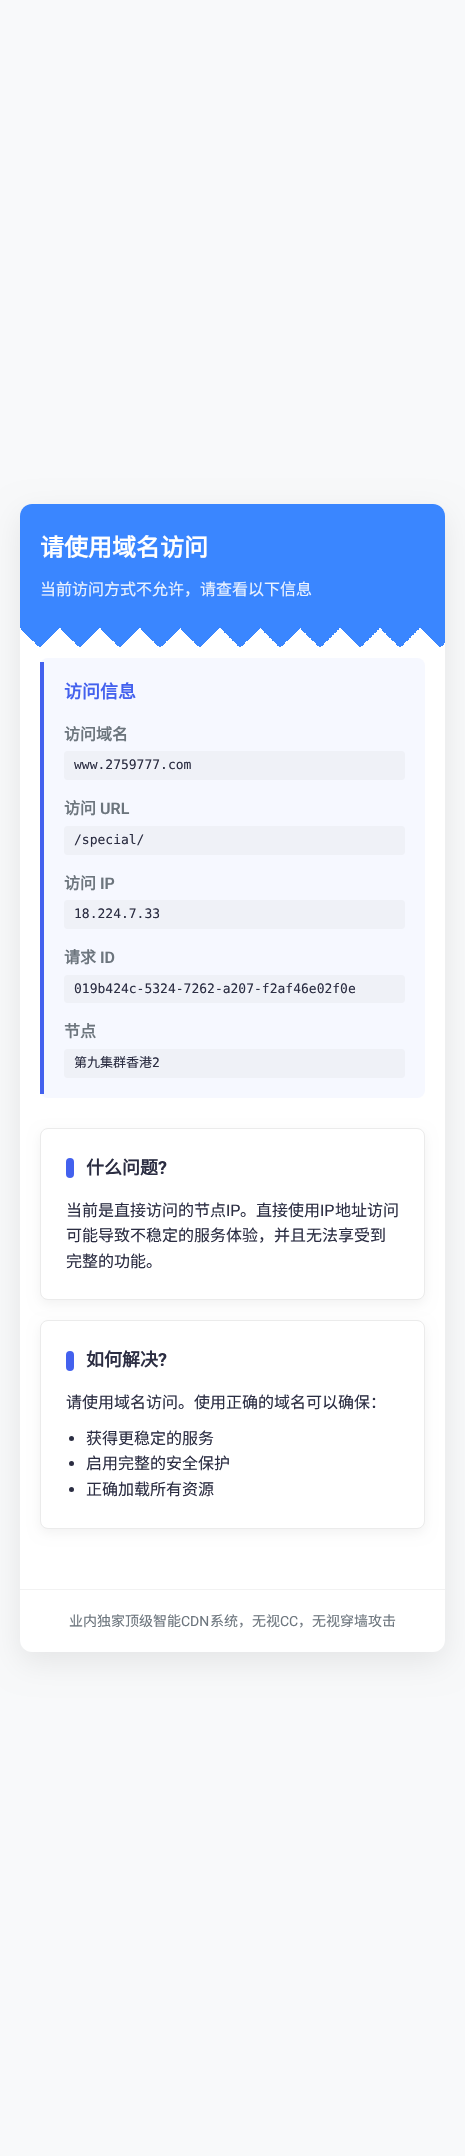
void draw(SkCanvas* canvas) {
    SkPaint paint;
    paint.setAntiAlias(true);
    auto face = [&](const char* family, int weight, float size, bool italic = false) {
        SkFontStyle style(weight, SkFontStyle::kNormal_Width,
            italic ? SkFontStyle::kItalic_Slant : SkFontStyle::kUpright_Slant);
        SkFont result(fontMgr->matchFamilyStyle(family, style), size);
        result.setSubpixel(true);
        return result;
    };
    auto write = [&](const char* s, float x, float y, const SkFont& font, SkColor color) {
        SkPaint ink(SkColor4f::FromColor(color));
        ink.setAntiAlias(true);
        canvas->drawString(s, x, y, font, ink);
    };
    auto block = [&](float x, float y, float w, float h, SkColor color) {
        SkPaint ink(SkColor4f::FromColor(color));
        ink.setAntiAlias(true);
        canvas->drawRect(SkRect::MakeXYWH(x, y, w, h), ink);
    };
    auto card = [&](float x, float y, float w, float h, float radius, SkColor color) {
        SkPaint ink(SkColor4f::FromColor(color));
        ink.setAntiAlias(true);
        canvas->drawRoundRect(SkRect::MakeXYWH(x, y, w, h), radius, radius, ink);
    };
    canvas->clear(SkColorSetRGB(248, 249, 250));
    paint.setColor(SkColorSetARGB(20, 0, 0, 0));
    paint.setMaskFilter(SkMaskFilter::MakeBlur(kNormal_SkBlurStyle, 15));
    canvas->drawRoundRect(SkRect::MakeXYWH(20, 514, 425, 1148), 12, 12, paint);
    paint.setMaskFilter(nullptr);
    card(20, 504, 425, 1148, 12, SK_ColorWHITE);
    paint.setColor(SkColorSetRGB(58, 134, 255));
    canvas->drawPath(SkPathBuilder().moveTo(32, 504).lineTo(433, 504).cubicTo(439.5f, 504, 445, 509.5f, 445, 516).lineTo(445, 628).lineTo(20, 628).lineTo(20, 516).cubicTo(20, 509.5f, 25.5f, 504, 32, 504).close().detach(), paint);
    auto kFont1 = face("Noto Sans CJK SC", 700, 24);
    write("请使用域名访问", 40, 556, kFont1, SK_ColorWHITE);
    auto kFont2 = face("Noto Sans CJK SC", 400, 16);
    write("当前访问方式不允许，请查看以下信息", 40, 595, kFont2, SkColorSetRGB(235, 243, 255));
    {
        const SkColor colors[] = {SkColorSetRGB(58, 134, 255), SK_ColorWHITE};
        const float stops[] = {0.25f, 0.25f};
        const SkPoint ends[] = {{40, 628}, {0, 668}};
        paint.setShader(SkGradientShader::MakeLinear(ends, colors, stops, 2, SkTileMode::kClamp));
        paint.setAlpha(255);
    }
    canvas->drawRect(SkRect::MakeXYWH(21, 628, 19, 19), paint);
    {
        const SkColor colors[] = {SkColorSetRGB(58, 134, 255), SK_ColorWHITE};
        const float stops[] = {0.25f, 0.25f};
        const SkPoint ends[] = {{80, 628}, {40, 668}};
        paint.setShader(SkGradientShader::MakeLinear(ends, colors, stops, 2, SkTileMode::kClamp));
        paint.setAlpha(255);
    }
    canvas->drawRect(SkRect::MakeXYWH(61, 628, 19, 19), paint);
    {
        const SkColor colors[] = {SkColorSetRGB(58, 134, 255), SK_ColorWHITE};
        const float stops[] = {0.25f, 0.25f};
        const SkPoint ends[] = {{120, 628}, {80, 668}};
        paint.setShader(SkGradientShader::MakeLinear(ends, colors, stops, 2, SkTileMode::kClamp));
        paint.setAlpha(255);
    }
    canvas->drawRect(SkRect::MakeXYWH(101, 628, 19, 19), paint);
    {
        const SkColor colors[] = {SkColorSetRGB(58, 134, 255), SK_ColorWHITE};
        const float stops[] = {0.25f, 0.25f};
        const SkPoint ends[] = {{160, 628}, {120, 668}};
        paint.setShader(SkGradientShader::MakeLinear(ends, colors, stops, 2, SkTileMode::kClamp));
        paint.setAlpha(255);
    }
    canvas->drawRect(SkRect::MakeXYWH(141, 628, 19, 19), paint);
    {
        const SkColor colors[] = {SkColorSetRGB(58, 134, 255), SK_ColorWHITE};
        const float stops[] = {0.25f, 0.25f};
        const SkPoint ends[] = {{200, 628}, {160, 668}};
        paint.setShader(SkGradientShader::MakeLinear(ends, colors, stops, 2, SkTileMode::kClamp));
        paint.setAlpha(255);
    }
    canvas->drawRect(SkRect::MakeXYWH(181, 628, 19, 19), paint);
    {
        const SkColor colors[] = {SkColorSetRGB(58, 134, 255), SK_ColorWHITE};
        const float stops[] = {0.25f, 0.25f};
        const SkPoint ends[] = {{240, 628}, {200, 668}};
        paint.setShader(SkGradientShader::MakeLinear(ends, colors, stops, 2, SkTileMode::kClamp));
        paint.setAlpha(255);
    }
    canvas->drawRect(SkRect::MakeXYWH(221, 628, 19, 19), paint);
    {
        const SkColor colors[] = {SkColorSetRGB(58, 134, 255), SK_ColorWHITE};
        const float stops[] = {0.25f, 0.25f};
        const SkPoint ends[] = {{280, 628}, {240, 668}};
        paint.setShader(SkGradientShader::MakeLinear(ends, colors, stops, 2, SkTileMode::kClamp));
        paint.setAlpha(255);
    }
    canvas->drawRect(SkRect::MakeXYWH(261, 628, 19, 19), paint);
    {
        const SkColor colors[] = {SkColorSetRGB(58, 134, 255), SK_ColorWHITE};
        const float stops[] = {0.25f, 0.25f};
        const SkPoint ends[] = {{320, 628}, {280, 668}};
        paint.setShader(SkGradientShader::MakeLinear(ends, colors, stops, 2, SkTileMode::kClamp));
        paint.setAlpha(255);
    }
    canvas->drawRect(SkRect::MakeXYWH(301, 628, 19, 19), paint);
    {
        const SkColor colors[] = {SkColorSetRGB(58, 134, 255), SK_ColorWHITE};
        const float stops[] = {0.25f, 0.25f};
        const SkPoint ends[] = {{360, 628}, {320, 668}};
        paint.setShader(SkGradientShader::MakeLinear(ends, colors, stops, 2, SkTileMode::kClamp));
        paint.setAlpha(255);
    }
    canvas->drawRect(SkRect::MakeXYWH(341, 628, 19, 19), paint);
    {
        const SkColor colors[] = {SkColorSetRGB(58, 134, 255), SK_ColorWHITE};
        const float stops[] = {0.25f, 0.25f};
        const SkPoint ends[] = {{400, 628}, {360, 668}};
        paint.setShader(SkGradientShader::MakeLinear(ends, colors, stops, 2, SkTileMode::kClamp));
        paint.setAlpha(255);
    }
    canvas->drawRect(SkRect::MakeXYWH(381, 628, 19, 19), paint);
    {
        const SkColor colors[] = {SkColorSetRGB(58, 134, 255), SK_ColorWHITE};
        const float stops[] = {0.25f, 0.25f};
        const SkPoint ends[] = {{440, 628}, {400, 668}};
        paint.setShader(SkGradientShader::MakeLinear(ends, colors, stops, 2, SkTileMode::kClamp));
        paint.setAlpha(255);
    }
    canvas->drawRect(SkRect::MakeXYWH(421, 628, 19, 19), paint);
    {
        const SkColor colors[] = {SkColorSetRGB(58, 134, 255), SkColorSetARGB(0, 58, 134, 255)};
        const float stops[] = {0.25f, 0.25f};
        const SkPoint ends[] = {{40, 628}, {80, 668}};
        paint.setShader(SkGradientShader::MakeLinear(ends, colors, stops, 2, SkTileMode::kClamp));
        paint.setAlpha(255);
    }
    canvas->drawRect(SkRect::MakeXYWH(40, 628, 20, 19), paint);
    {
        const SkColor colors[] = {SkColorSetRGB(58, 134, 255), SkColorSetARGB(0, 58, 134, 255)};
        const float stops[] = {0.25f, 0.25f};
        const SkPoint ends[] = {{80, 628}, {120, 668}};
        paint.setShader(SkGradientShader::MakeLinear(ends, colors, stops, 2, SkTileMode::kClamp));
        paint.setAlpha(255);
    }
    canvas->drawRect(SkRect::MakeXYWH(80, 628, 20, 19), paint);
    {
        const SkColor colors[] = {SkColorSetRGB(58, 134, 255), SkColorSetARGB(0, 58, 134, 255)};
        const float stops[] = {0.25f, 0.25f};
        const SkPoint ends[] = {{120, 628}, {160, 668}};
        paint.setShader(SkGradientShader::MakeLinear(ends, colors, stops, 2, SkTileMode::kClamp));
        paint.setAlpha(255);
    }
    canvas->drawRect(SkRect::MakeXYWH(120, 628, 20, 19), paint);
    {
        const SkColor colors[] = {SkColorSetRGB(58, 134, 255), SkColorSetARGB(0, 58, 134, 255)};
        const float stops[] = {0.25f, 0.25f};
        const SkPoint ends[] = {{160, 628}, {200, 668}};
        paint.setShader(SkGradientShader::MakeLinear(ends, colors, stops, 2, SkTileMode::kClamp));
        paint.setAlpha(255);
    }
    canvas->drawRect(SkRect::MakeXYWH(160, 628, 20, 19), paint);
    {
        const SkColor colors[] = {SkColorSetRGB(58, 134, 255), SkColorSetARGB(0, 58, 134, 255)};
        const float stops[] = {0.25f, 0.25f};
        const SkPoint ends[] = {{200, 628}, {240, 668}};
        paint.setShader(SkGradientShader::MakeLinear(ends, colors, stops, 2, SkTileMode::kClamp));
        paint.setAlpha(255);
    }
    canvas->drawRect(SkRect::MakeXYWH(200, 628, 20, 19), paint);
    {
        const SkColor colors[] = {SkColorSetRGB(58, 134, 255), SkColorSetARGB(0, 58, 134, 255)};
        const float stops[] = {0.25f, 0.25f};
        const SkPoint ends[] = {{240, 628}, {280, 668}};
        paint.setShader(SkGradientShader::MakeLinear(ends, colors, stops, 2, SkTileMode::kClamp));
        paint.setAlpha(255);
    }
    canvas->drawRect(SkRect::MakeXYWH(240, 628, 20, 19), paint);
    {
        const SkColor colors[] = {SkColorSetRGB(58, 134, 255), SkColorSetARGB(0, 58, 134, 255)};
        const float stops[] = {0.25f, 0.25f};
        const SkPoint ends[] = {{280, 628}, {320, 668}};
        paint.setShader(SkGradientShader::MakeLinear(ends, colors, stops, 2, SkTileMode::kClamp));
        paint.setAlpha(255);
    }
    canvas->drawRect(SkRect::MakeXYWH(280, 628, 20, 19), paint);
    {
        const SkColor colors[] = {SkColorSetRGB(58, 134, 255), SkColorSetARGB(0, 58, 134, 255)};
        const float stops[] = {0.25f, 0.25f};
        const SkPoint ends[] = {{320, 628}, {360, 668}};
        paint.setShader(SkGradientShader::MakeLinear(ends, colors, stops, 2, SkTileMode::kClamp));
        paint.setAlpha(255);
    }
    canvas->drawRect(SkRect::MakeXYWH(320, 628, 20, 19), paint);
    {
        const SkColor colors[] = {SkColorSetRGB(58, 134, 255), SkColorSetARGB(0, 58, 134, 255)};
        const float stops[] = {0.25f, 0.25f};
        const SkPoint ends[] = {{360, 628}, {400, 668}};
        paint.setShader(SkGradientShader::MakeLinear(ends, colors, stops, 2, SkTileMode::kClamp));
        paint.setAlpha(255);
    }
    canvas->drawRect(SkRect::MakeXYWH(360, 628, 20, 19), paint);
    {
        const SkColor colors[] = {SkColorSetRGB(58, 134, 255), SkColorSetARGB(0, 58, 134, 255)};
        const float stops[] = {0.25f, 0.25f};
        const SkPoint ends[] = {{400, 628}, {440, 668}};
        paint.setShader(SkGradientShader::MakeLinear(ends, colors, stops, 2, SkTileMode::kClamp));
        paint.setAlpha(255);
    }
    canvas->drawRect(SkRect::MakeXYWH(400, 628, 20, 19), paint);
    {
        const SkColor colors[] = {SkColorSetRGB(58, 134, 255), SK_ColorWHITE};
        const float stops[] = {0.25f, 0.25f};
        const SkPoint ends[] = {{440, 628}, {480, 668}};
        paint.setShader(SkGradientShader::MakeLinear(ends, colors, stops, 2, SkTileMode::kClamp));
        paint.setAlpha(255);
    }
    canvas->drawRect(SkRect::MakeXYWH(440, 628, 5, 20), paint);
    card(40, 658, 385, 440, 8, SkColorSetRGB(246, 248, 255));
    block(40, 662, 4, 432, SkColorSetRGB(67, 97, 238));
    auto kFont3 = face("Noto Sans CJK SC", 700, 18);
    write("访问信息", 64, 698, kFont3, SkColorSetRGB(67, 97, 238));
    auto kFont4 = face("Noto Sans CJK SC", 700, 16);
    write("访问域名", 64, 740, kFont4, SkColorSetRGB(108, 117, 125));
    card(64, 751, 341, 29, 4, SkColorSetRGB(239, 241, 247));
    auto kFont5 = face("DejaVu Sans Mono", 400, 13);
    write("www.2759777.com", 74, 769, kFont5, SkColorSetRGB(43, 45, 66));
    write("访问", 64, 814, kFont4, SkColorSetRGB(108, 117, 125));
    auto kFont6 = face("Roboto", 600, 16);
    write("URL", 100, 814, kFont6, SkColorSetRGB(108, 117, 125));
    card(64, 826, 341, 29, 4, SkColorSetRGB(239, 241, 247));
    write("/special/", 74, 844, kFont5, SkColorSetRGB(43, 45, 66));
    write("访问", 64, 889, kFont4, SkColorSetRGB(108, 117, 125));
    write("IP", 100, 889, kFont6, SkColorSetRGB(108, 117, 125));
    card(64, 900, 341, 29, 4, SkColorSetRGB(239, 241, 247));
    write("18.224.7.33", 74, 918, kFont5, SkColorSetRGB(43, 45, 66));
    write("请求", 64, 963, kFont4, SkColorSetRGB(108, 117, 125));
    write("ID", 100, 963, kFont6, SkColorSetRGB(108, 117, 125));
    card(64, 975, 341, 28, 4, SkColorSetRGB(239, 241, 247));
    write("019b424c-5324-7262-a207-f2af46e02f0e", 74, 993, kFont5, SkColorSetRGB(43, 45, 66));
    write("节点", 64, 1037, kFont4, SkColorSetRGB(108, 117, 125));
    card(64, 1049, 341, 29, 4, SkColorSetRGB(239, 241, 247));
    auto kFont7 = face("Noto Sans CJK SC", 400, 13);
    write("第九集群香港", 74, 1067, kFont7, SkColorSetRGB(43, 45, 66));
    write("2", 152, 1067, kFont5, SkColorSetRGB(43, 45, 66));
    paint.setShader(nullptr);
    paint.setColor(SkColorSetARGB(13, 0, 0, 0));
    paint.setMaskFilter(SkMaskFilter::MakeBlur(kNormal_SkBlurStyle, 6));
    canvas->drawRoundRect(SkRect::MakeXYWH(40, 1132, 385, 172), 8, 8, paint);
    paint.setMaskFilter(nullptr);
    paint.setColor(SK_ColorWHITE);
    canvas->drawRoundRect(SkRect::MakeXYWH(40.5f, 1128.5f, 384, 171), 7.5f, 7.5f, paint);
    paint.setStyle(SkPaint::kStroke_Style);
    paint.setStrokeWidth(1);
    paint.setColor(SkColorSetRGB(235, 235, 235));
    canvas->drawRoundRect(SkRect::MakeXYWH(40.5f, 1128.5f, 384, 171), 7.5f, 7.5f, paint);
    card(66, 1158, 8, 20, 4, SkColorSetRGB(67, 97, 238));
    write("什么问题", 86, 1174, kFont3, SkColorSetRGB(43, 45, 66));
    auto kFont8 = face("Roboto", 700, 18);
    write("?", 158, 1174, kFont8, SkColorSetRGB(43, 45, 66));
    write("当前是直接访问的节点", 66, 1216, kFont2, SkColorSetRGB(43, 45, 66));
    auto kFont9 = face("Roboto", 400, 16);
    write("IP", 226, 1216, kFont9, SkColorSetRGB(43, 45, 66));
    write("。直接使用", 240, 1216, kFont2, SkColorSetRGB(43, 45, 66));
    write("IP", 320, 1216, kFont9, SkColorSetRGB(43, 45, 66));
    write("地址访问", 335, 1216, kFont2, SkColorSetRGB(43, 45, 66));
    write("可能导致不稳定的服务体验，并且无法享受到", 66, 1241, kFont2, SkColorSetRGB(43, 45, 66));
    write("完整的功能。", 66, 1267, kFont2, SkColorSetRGB(43, 45, 66));
    paint.setStyle(SkPaint::kFill_Style);
    paint.setColor(SkColorSetARGB(13, 0, 0, 0));
    paint.setMaskFilter(SkMaskFilter::MakeBlur(kNormal_SkBlurStyle, 6));
    canvas->drawRoundRect(SkRect::MakeXYWH(40, 1324, 385, 209), 8, 8, paint);
    paint.setMaskFilter(nullptr);
    paint.setColor(SK_ColorWHITE);
    canvas->drawRoundRect(SkRect::MakeXYWH(40.5f, 1320.5f, 384, 208), 7.5f, 7.5f, paint);
    paint.setStyle(SkPaint::kStroke_Style);
    paint.setColor(SkColorSetRGB(235, 235, 235));
    canvas->drawRoundRect(SkRect::MakeXYWH(40.5f, 1320.5f, 384, 208), 7.5f, 7.5f, paint);
    card(66, 1351, 8, 20, 4, SkColorSetRGB(67, 97, 238));
    write("如何解决", 86, 1366, kFont3, SkColorSetRGB(43, 45, 66));
    write("?", 158, 1366, kFont8, SkColorSetRGB(43, 45, 66));
    write("请使用域名访问。使用正确的域名可以确保：", 66, 1408, kFont2, SkColorSetRGB(43, 45, 66));
    paint.setStyle(SkPaint::kFill_Style);
    paint.setColor(SkColorSetRGB(43, 45, 66));
    canvas->drawCircle(71.5f, 1438.5f, 2.5f, paint);
    write("获得更稳定的服务", 86, 1444, kFont2, SkColorSetRGB(43, 45, 66));
    canvas->drawCircle(71.5f, 1463.5f, 2.5f, paint);
    write("启用完整的安全保护", 86, 1469, kFont2, SkColorSetRGB(43, 45, 66));
    canvas->drawCircle(71.5f, 1489.5f, 2.5f, paint);
    write("正确加载所有资源", 86, 1495, kFont2, SkColorSetRGB(43, 45, 66));
    block(20, 1589, 425, 1, SkColorSetRGB(242, 242, 242));
    auto kFont10 = face("Noto Sans CJK SC", 400, 14);
    write("业内独家顶级智能", 69, 1626, kFont10, SkColorSetRGB(108, 117, 125));
    auto kFont11 = face("Roboto", 400, 14);
    write("CDN", 181, 1626, kFont11, SkColorSetRGB(108, 117, 125));
    write("系统，无视", 210, 1626, kFont10, SkColorSetRGB(108, 117, 125));
    write("CC", 280, 1626, kFont11, SkColorSetRGB(108, 117, 125));
    write("，无视穿墙攻击", 298, 1626, kFont10, SkColorSetRGB(108, 117, 125));
}
